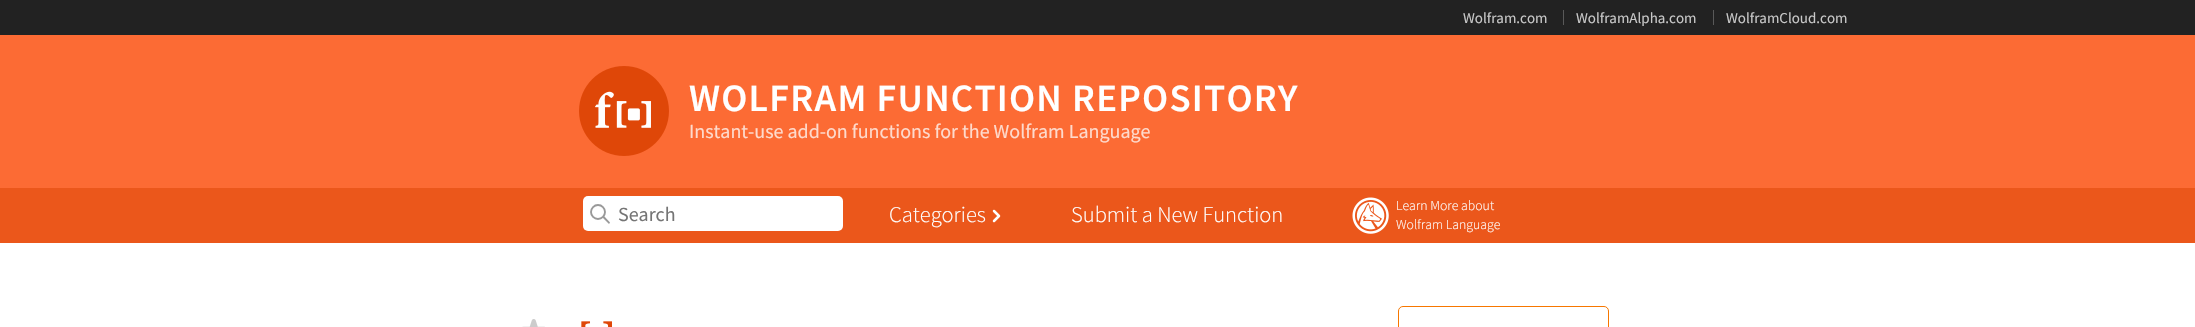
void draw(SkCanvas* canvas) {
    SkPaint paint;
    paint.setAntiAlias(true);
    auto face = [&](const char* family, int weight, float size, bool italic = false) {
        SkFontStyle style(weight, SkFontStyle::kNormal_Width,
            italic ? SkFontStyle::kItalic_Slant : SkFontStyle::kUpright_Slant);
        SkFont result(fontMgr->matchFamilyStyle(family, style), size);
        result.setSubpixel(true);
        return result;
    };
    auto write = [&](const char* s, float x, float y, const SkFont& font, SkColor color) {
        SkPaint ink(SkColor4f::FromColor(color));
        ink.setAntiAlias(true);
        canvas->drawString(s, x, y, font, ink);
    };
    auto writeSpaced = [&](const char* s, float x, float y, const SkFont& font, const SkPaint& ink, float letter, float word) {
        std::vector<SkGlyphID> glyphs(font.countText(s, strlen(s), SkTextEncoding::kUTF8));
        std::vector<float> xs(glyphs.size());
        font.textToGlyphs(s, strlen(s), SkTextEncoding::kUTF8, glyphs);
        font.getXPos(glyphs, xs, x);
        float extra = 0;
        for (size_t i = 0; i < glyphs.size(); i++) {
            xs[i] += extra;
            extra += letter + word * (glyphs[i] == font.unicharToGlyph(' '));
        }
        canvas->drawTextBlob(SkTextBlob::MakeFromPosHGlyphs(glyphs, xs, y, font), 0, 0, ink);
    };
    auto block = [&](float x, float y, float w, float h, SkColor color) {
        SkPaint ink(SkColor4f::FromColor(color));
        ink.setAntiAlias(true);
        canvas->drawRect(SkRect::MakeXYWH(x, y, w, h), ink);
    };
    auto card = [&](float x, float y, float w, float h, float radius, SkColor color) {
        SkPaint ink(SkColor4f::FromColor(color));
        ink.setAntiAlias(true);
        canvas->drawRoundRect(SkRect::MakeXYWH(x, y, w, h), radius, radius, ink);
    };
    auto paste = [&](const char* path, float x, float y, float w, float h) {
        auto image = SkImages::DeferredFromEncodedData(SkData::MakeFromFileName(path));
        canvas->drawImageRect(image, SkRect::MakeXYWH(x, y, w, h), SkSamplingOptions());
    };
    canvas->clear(SK_ColorWHITE);
    block(0, 0, 2195, 35, SkColorSetRGB(34, 34, 34));
    auto kFont1 = face("Source Sans Pro", 400, 15);
    write("Wolfram.com", 1463, 23, kFont1, SkColorSetRGB(200, 200, 200));
    block(1563, 10, 1, 15, SkColorSetRGB(89, 89, 89));
    write("WolframAlpha.com", 1576, 23, kFont1, SkColorSetRGB(200, 200, 200));
    block(1713, 10, 1, 15, SkColorSetRGB(89, 89, 89));
    write("WolframCloud.com", 1726, 23, kFont1, SkColorSetRGB(200, 200, 200));
    block(0, 35, 2195, 153, SkColorSetRGB(252, 107, 52));
    paste("pic1.png", 579, 66, 90, 90);
    auto kFont2 = face("Source Sans Pro", 600, 38.75f);
    paint.setColor(SK_ColorWHITE);
    writeSpaced("WOLFRAM FUNCTION REPOSITORY", 689, 111, kFont2, paint, 1.25f, 0);
    auto kFont3 = face("Source Sans Pro", 400, 20);
    write("Instant-use add-on functions for the Wolfram Language", 689, 138, kFont3, SkColorSetRGB(254, 218, 204));
    block(0, 188, 2195, 55, SkColorSetRGB(235, 87, 27));
    card(583, 196, 260, 35, 5, SK_ColorWHITE);
    paint.setStyle(SkPaint::kStroke_Style);
    paint.setStrokeWidth(1.9f);
    paint.setColor(SkColorSetRGB(153, 153, 153));
    canvas->drawCircle(598, 212, 7, paint);
    paint.setStyle(SkPaint::kFill_Style);
    canvas->drawPath(SkPathBuilder().moveTo(602.5f, 217.5f).lineTo(609, 224).lineTo(610, 222.5f).lineTo(604, 216).close().detach(), paint);
    write("Search", 618, 221, kFont3, SkColorSetRGB(117, 117, 117));
    auto kFont4 = face("Source Sans Pro", 300, 22.5f);
    write("Categories", 889, 222, kFont4, SK_ColorWHITE);
    paint.setStyle(SkPaint::kStroke_Style);
    paint.setStrokeWidth(2.5f);
    paint.setStrokeCap(SkPaint::kRound_Cap);
    paint.setStrokeJoin(SkPaint::kRound_Join);
    paint.setColor(SK_ColorWHITE);
    canvas->drawPath(SkPathBuilder().moveTo(994, 211).lineTo(999, 216).lineTo(994, 221).detach(), paint);
    write("Submit a New Function", 1071, 222, kFont4, SK_ColorWHITE);
    paste("pic2.png", 1352, 197, 37, 37);
    auto kFont5 = face("Source Sans Pro", 300, 13.75f);
    write("Learn More about", 1396, 210, kFont5, SK_ColorWHITE);
    write("Wolfram Language", 1396, 229, kFont5, SK_ColorWHITE);
    paste("pic3.png", 522, 319, 23, 8);
    paste("pic4.png", 581, 321, 31, 6);
    paint.setStrokeWidth(1);
    paint.setStrokeCap(SkPaint::kButt_Cap);
    paint.setStrokeJoin(SkPaint::kMiter_Join);
    paint.setColor(SkColorSetRGB(247, 119, 0));
    canvas->drawRoundRect(SkRect::MakeXYWH(1398.5f, 306.5f, 210, 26), 4.5f, 4.5f, paint);
}
